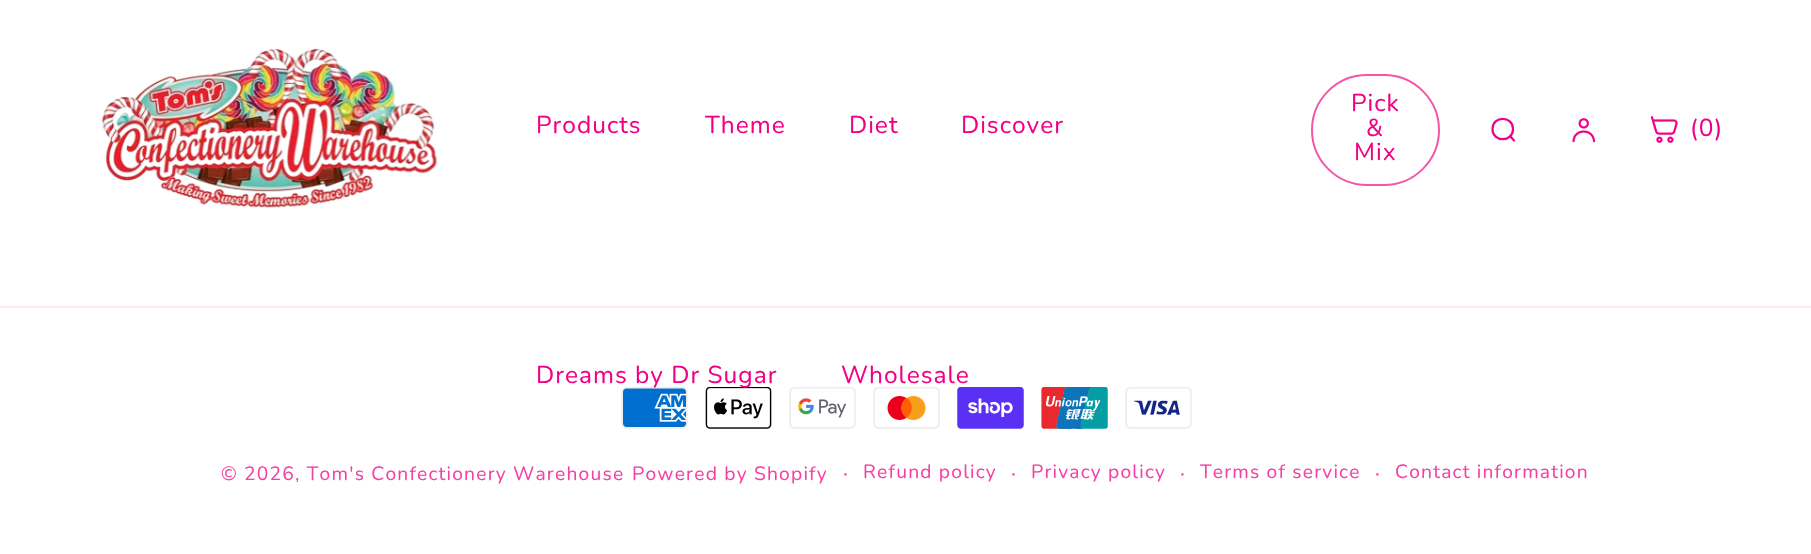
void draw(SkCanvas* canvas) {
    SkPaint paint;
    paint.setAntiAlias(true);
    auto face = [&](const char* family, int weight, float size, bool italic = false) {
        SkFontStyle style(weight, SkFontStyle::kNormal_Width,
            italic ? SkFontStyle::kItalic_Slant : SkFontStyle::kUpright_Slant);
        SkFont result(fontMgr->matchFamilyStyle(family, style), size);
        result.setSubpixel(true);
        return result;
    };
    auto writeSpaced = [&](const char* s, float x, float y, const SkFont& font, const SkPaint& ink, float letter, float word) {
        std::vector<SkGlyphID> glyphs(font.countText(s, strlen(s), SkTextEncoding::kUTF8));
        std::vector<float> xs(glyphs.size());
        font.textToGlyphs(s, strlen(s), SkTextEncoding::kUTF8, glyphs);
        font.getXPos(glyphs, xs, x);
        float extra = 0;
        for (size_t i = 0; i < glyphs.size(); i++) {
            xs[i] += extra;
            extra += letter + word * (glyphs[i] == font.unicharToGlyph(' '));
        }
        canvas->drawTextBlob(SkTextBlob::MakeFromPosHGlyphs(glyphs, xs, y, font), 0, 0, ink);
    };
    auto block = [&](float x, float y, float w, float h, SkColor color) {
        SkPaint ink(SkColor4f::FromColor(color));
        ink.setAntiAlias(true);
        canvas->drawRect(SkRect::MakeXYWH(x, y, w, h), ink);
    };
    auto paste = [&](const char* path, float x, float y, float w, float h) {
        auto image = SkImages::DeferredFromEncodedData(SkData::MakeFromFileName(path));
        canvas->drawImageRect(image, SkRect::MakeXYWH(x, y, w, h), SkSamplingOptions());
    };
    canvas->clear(SK_ColorWHITE);
    paste("pic1.png", 102, 48, 336, 160);
    auto kFont1 = face("Nunito", 400, 24.5f);
    paint.setColor(SkColorSetRGB(242, 0, 133));
    writeSpaced("Products", 536, 133, kFont1, paint, 1, 0);
    writeSpaced("Theme", 705, 133, kFont1, paint, 1, 0);
    writeSpaced("Diet", 849, 133, kFont1, paint, 1, 0);
    writeSpaced("Discover", 961, 133, kFont1, paint, 1, 0);
    paste("pic4.png", 621, 387, 67, 42);
    paste("pic5.png", 705, 387, 67, 42);
    writeSpaced("Dreams by Dr Sugar", 536, 383, kFont1, paint, 1, 0);
    writeSpaced("Wholesale", 841, 383, kFont1, paint, 1, 0);
    paint.setStyle(SkPaint::kStroke_Style);
    paint.setStrokeWidth(2);
    paint.setColor(SkColorSetRGB(243, 86, 167));
    canvas->drawRoundRect(SkRect::MakeXYWH(1312, 75, 127, 110), 55, 55, paint);
    paint.setStyle(SkPaint::kFill_Style);
    paint.setColor(SkColorSetRGB(242, 0, 133));
    writeSpaced("Pick", 1351, 111, kFont1, paint, 1, 0);
    writeSpaced("&", 1366, 136, kFont1, paint, 1, 0);
    writeSpaced("Mix", 1354, 160, kFont1, paint, 1, 0);
    paint.setStyle(SkPaint::kStroke_Style);
    paint.setStrokeWidth(2.2f);
    paint.setStrokeCap(SkPaint::kRound_Cap);
    paint.setStrokeJoin(SkPaint::kRound_Join);
    canvas->drawPath(SkPathBuilder().moveTo(1510, 136).lineTo(1514, 140.5f).moveTo(1513, 129).cubicTo(1513, 142.5f, 1492.5f, 142.5f, 1492.5f, 129).cubicTo(1492.5f, 115.5f, 1513, 115.5f, 1513, 129).detach(), paint);
    paste("pic2.png", 1572, 118, 24, 25);
    paste("pic3.png", 1650, 116, 28, 27);
    paint.setStyle(SkPaint::kFill_Style);
    writeSpaced("(0)", 1690, 136, kFont1, paint, 1, 0);
    block(0, 306, 1811, 2, SkColorSetRGB(254, 235, 245));
    paste("pic6.png", 789, 387, 67, 42);
    paste("pic7.png", 873, 387, 67, 42);
    paste("pic8.png", 957, 387, 67, 42);
    paste("pic9.png", 1041, 387, 67, 42);
    paste("pic10.png", 1125, 387, 67, 42);
    auto kFont2 = face("Nunito", 400, 19.25f);
    paint.setColor(SkColorSetRGB(245, 64, 164));
    writeSpaced("© 2026, Tom's Confectionery Warehouse", 221, 480, kFont2, paint, 1.2f, 0);
    writeSpaced("Powered by Shopify", 632, 480, kFont2, paint, 1.2f, 0);
    auto kFont3 = face("Nunito", 400, 21);
    writeSpaced("·", 843, 480, kFont3, paint, 1.2f, 0);
    writeSpaced("Refund policy", 863, 478, kFont2, paint, 1.2f, 0);
    writeSpaced("·", 1011, 480, kFont3, paint, 1.2f, 0);
    writeSpaced("Privacy policy", 1031, 478, kFont2, paint, 1.2f, 0);
    writeSpaced("·", 1180, 480, kFont3, paint, 1.2f, 0);
    writeSpaced("Terms of service", 1200, 478, kFont2, paint, 1.2f, 0);
    writeSpaced("·", 1375, 480, kFont3, paint, 1.2f, 0);
    writeSpaced("Contact information", 1395, 478, kFont2, paint, 1.2f, 0);
}
